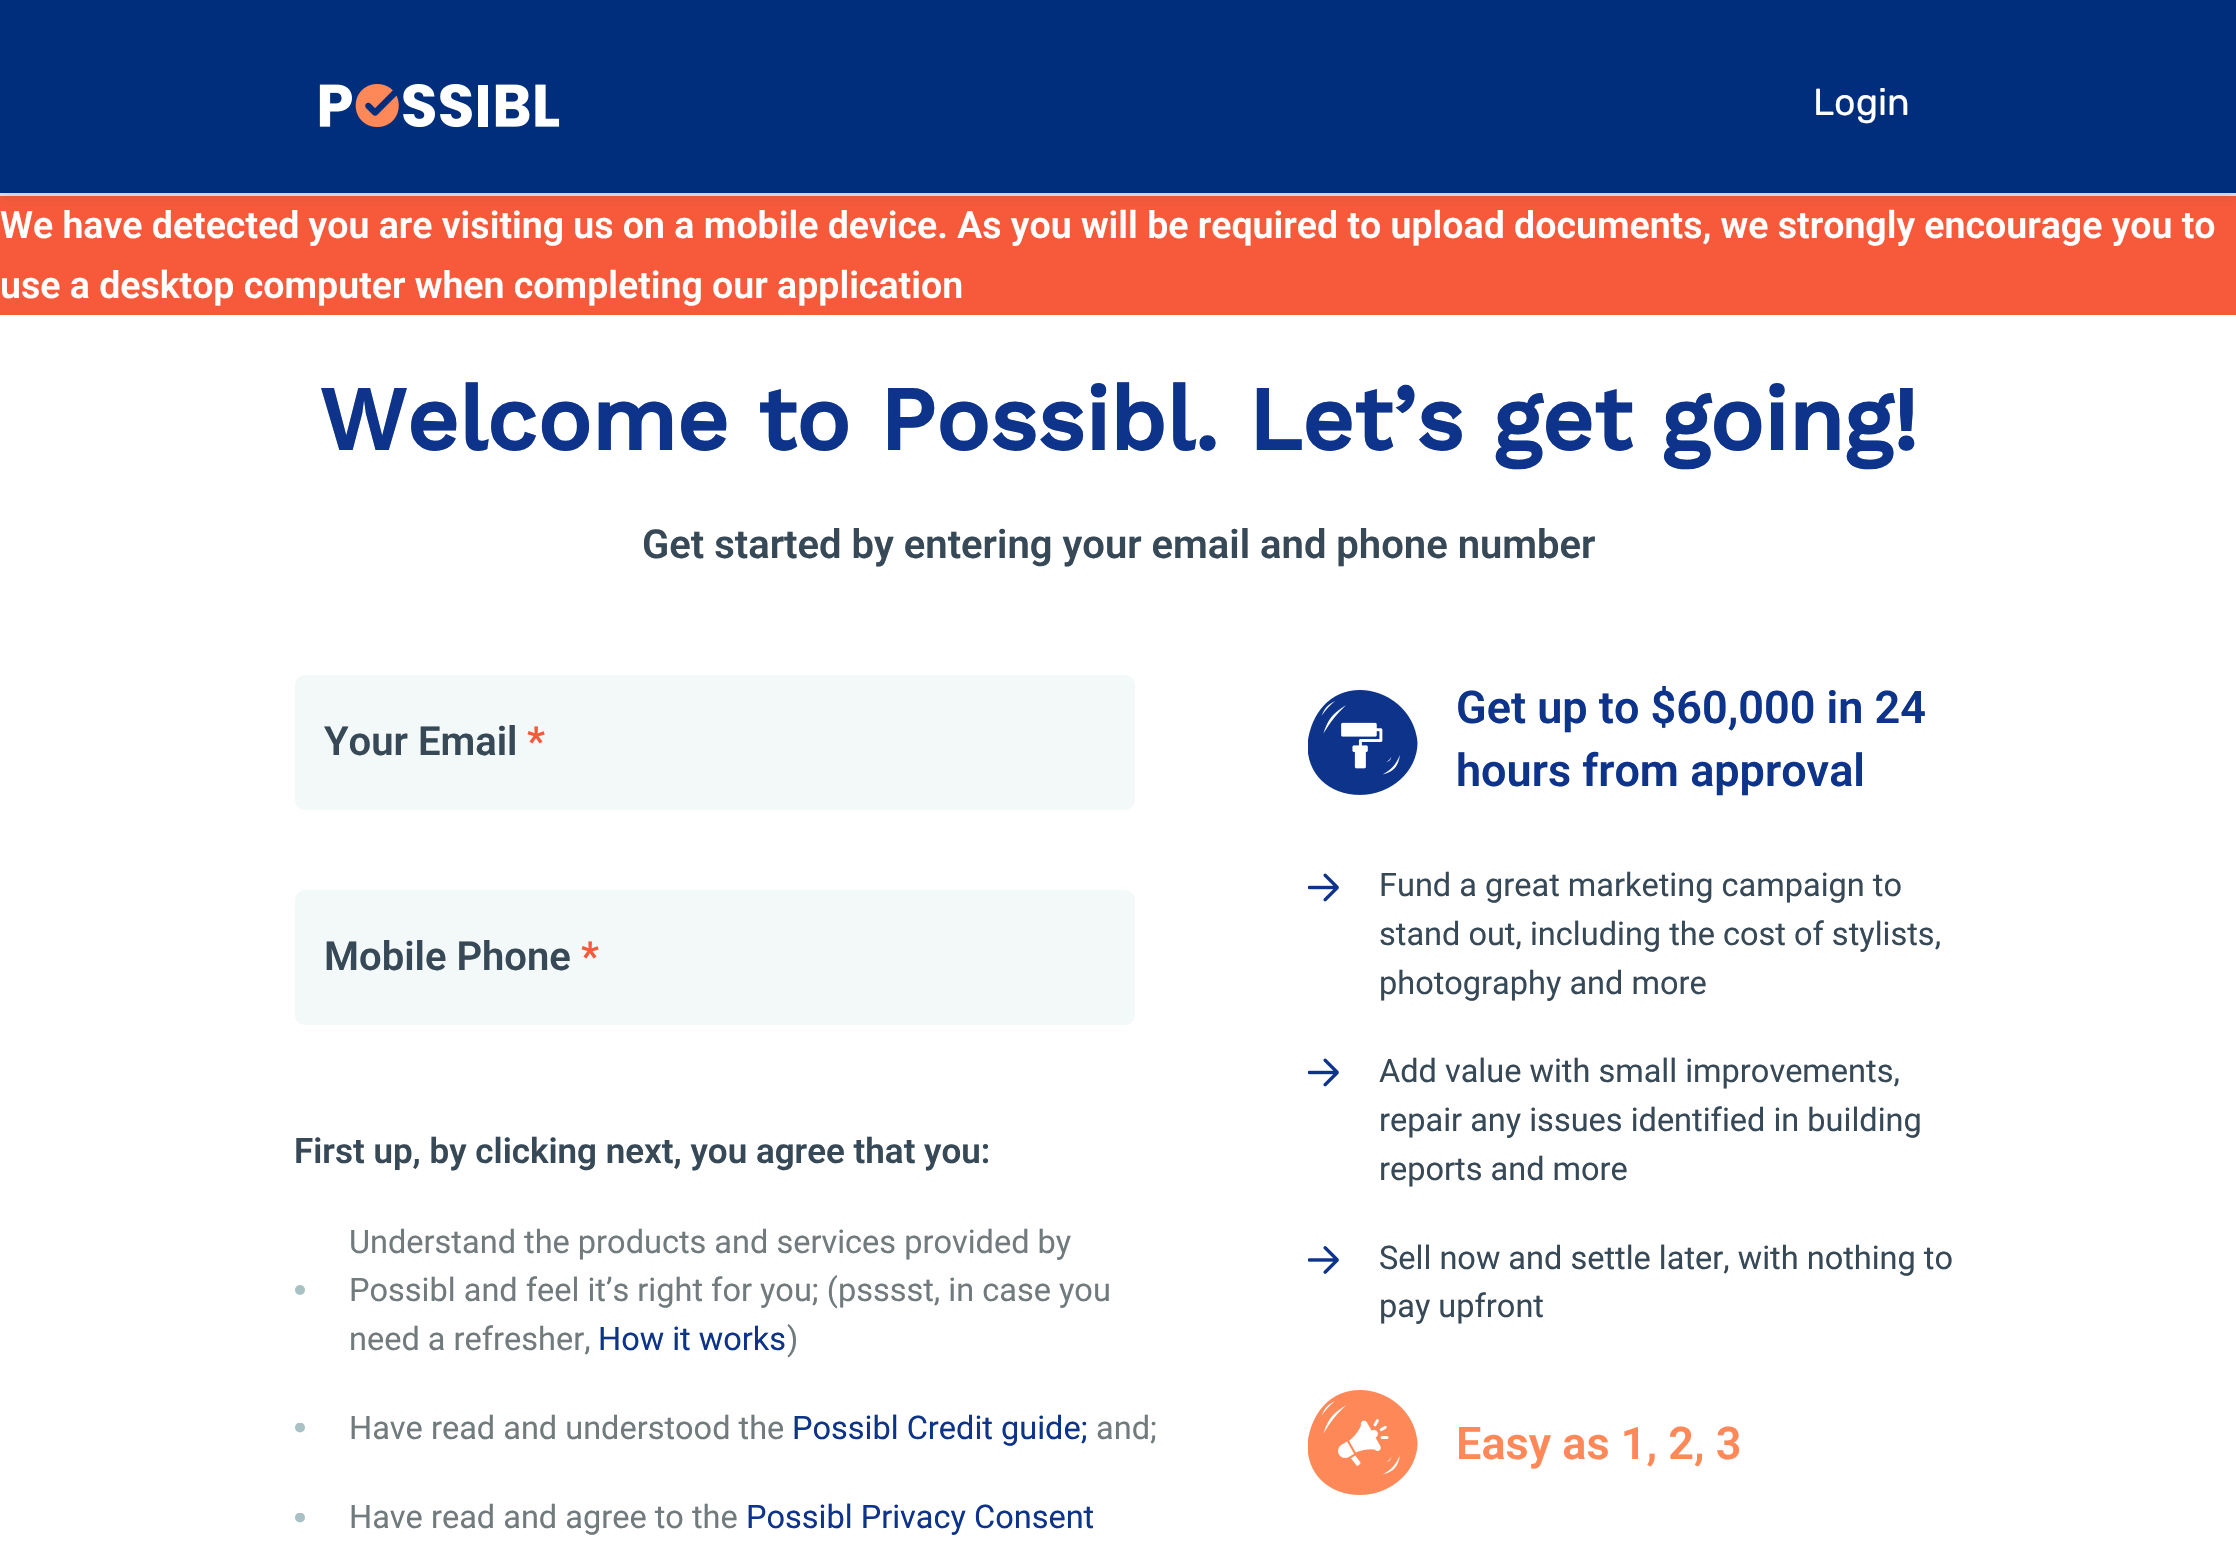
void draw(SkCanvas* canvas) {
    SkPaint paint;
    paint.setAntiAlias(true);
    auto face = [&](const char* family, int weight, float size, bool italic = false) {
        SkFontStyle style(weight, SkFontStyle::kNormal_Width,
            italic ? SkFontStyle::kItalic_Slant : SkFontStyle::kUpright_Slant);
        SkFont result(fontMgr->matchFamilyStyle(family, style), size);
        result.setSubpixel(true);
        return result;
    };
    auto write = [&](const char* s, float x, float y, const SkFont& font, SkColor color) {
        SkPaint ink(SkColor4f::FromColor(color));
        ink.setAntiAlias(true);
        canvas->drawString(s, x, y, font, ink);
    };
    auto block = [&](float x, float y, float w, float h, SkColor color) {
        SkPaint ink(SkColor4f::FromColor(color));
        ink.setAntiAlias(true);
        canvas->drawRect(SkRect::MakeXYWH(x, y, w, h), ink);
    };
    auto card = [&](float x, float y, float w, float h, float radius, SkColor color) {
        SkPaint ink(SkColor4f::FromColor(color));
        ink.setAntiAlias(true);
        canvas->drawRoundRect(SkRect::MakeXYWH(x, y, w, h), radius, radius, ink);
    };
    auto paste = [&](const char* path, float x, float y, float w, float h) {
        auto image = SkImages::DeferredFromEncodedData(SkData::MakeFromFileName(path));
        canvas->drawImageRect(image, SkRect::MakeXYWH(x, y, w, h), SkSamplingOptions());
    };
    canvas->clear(SK_ColorWHITE);
    block(0, 0, 2236, 193, SkColorSetRGB(0, 45, 124));
    block(0, 193, 2236, 3, SkColorSetRGB(222, 226, 230));
    block(0, 196, 2236, 119, SkColorSetRGB(247, 90, 59));
    canvas->save();
    canvas->clipPath(SkPathBuilder(SkPathFillType::kEvenOdd).moveTo(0, 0).lineTo(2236, 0).lineTo(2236, 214).lineTo(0, 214).close().moveTo(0, 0).lineTo(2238, 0).lineTo(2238, 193).lineTo(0, 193).close().detach(), true);
    paint.setColor(SkColorSetARGB(18, 0, 0, 0));
    paint.setMaskFilter(SkMaskFilter::MakeBlur(kNormal_SkBlurStyle, 5));
    canvas->drawRect(SkRect::MakeXYWH(0, 5, 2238, 193), paint);
    paint.setMaskFilter(nullptr);
    canvas->restore();
    paste("pic1.png", 319, 84, 241, 44);
    auto kFont1 = face("Rubik", 400, 37.5f);
    write("Login", 1813, 115, kFont1, SK_ColorWHITE);
    auto kFont2 = face("Roboto", 600, 37.5f);
    write("We have detected you are visiting us on a mobile device. As you will be required to upload documents, we strongly encourage you to", 0, 238, kFont2, SK_ColorWHITE);
    write("use a desktop computer when completing our application", 0, 298, kFont2, SK_ColorWHITE);
    auto kFont3 = face("Work Sans", 700, 90);
    write("Welcome to Possibl. Let’s get going!", 319, 450, kFont3, SkColorSetRGB(13, 51, 139));
    auto kFont4 = face("Roboto", 600, 40);
    write("Get started by entering your email and phone number", 642, 558, kFont4, SkColorSetRGB(55, 73, 87));
    card(295, 675, 840, 135, 10, SkColorSetRGB(243, 248, 249));
    write("Your Email", 324, 755, kFont4, SkColorSetRGB(55, 73, 87));
    write("*", 527, 755, kFont4, SkColorSetRGB(247, 90, 59));
    card(295, 890, 840, 135, 10, SkColorSetRGB(243, 248, 249));
    write("Mobile Phone", 324, 970, kFont4, SkColorSetRGB(55, 73, 87));
    write("*", 581, 970, kFont4, SkColorSetRGB(247, 90, 59));
    auto kFont5 = face("Roboto", 600, 35);
    write("First up, by clicking next, you agree that you:", 294, 1163, kFont5, SkColorSetRGB(55, 73, 87));
    paint.setColor(SkColorSetRGB(169, 193, 197));
    canvas->drawCircle(300, 1290, 5, paint);
    auto kFont6 = face("Roboto", 400, 32.5f);
    write("Understand the products and services provided by", 349, 1253, kFont6, SkColorSetRGB(113, 123, 125));
    write("Possibl and feel it’s right for you; (psssst, in case you", 349, 1301, kFont6, SkColorSetRGB(113, 123, 125));
    write("need a refresher,", 349, 1350, kFont6, SkColorSetRGB(113, 123, 125));
    write("How it works", 598, 1350, kFont6, SkColorSetRGB(13, 51, 139));
    write(")", 787, 1350, kFont6, SkColorSetRGB(113, 123, 125));
    canvas->save();
    canvas->clipRect(SkRect::MakeXYWH(295, 1423, 15, 15));
    canvas->drawCircle(300, 1427.5f, 5, paint);
    canvas->restore();
    write("Have read and understood the", 349, 1439, kFont6, SkColorSetRGB(113, 123, 125));
    write("Possibl Credit guide;", 792, 1439, kFont6, SkColorSetRGB(13, 51, 139));
    write("and;", 1096, 1439, kFont6, SkColorSetRGB(113, 123, 125));
    canvas->save();
    canvas->clipRect(SkRect::MakeXYWH(295, 1513, 15, 15));
    canvas->drawCircle(300, 1517.5f, 5, paint);
    canvas->restore();
    write("Have read and agree to the", 349, 1528, kFont6, SkColorSetRGB(113, 123, 125));
    write("Possibl Privacy Consent", 746, 1528, kFont6, SkColorSetRGB(13, 51, 139));
    paste("pic2.png", 1308, 690, 110, 105);
    auto kFont7 = face("Roboto", 600, 45);
    write("Get up to $60,000 in 24", 1456, 723, kFont7, SkColorSetRGB(13, 51, 139));
    write("hours from approval", 1456, 786, kFont7, SkColorSetRGB(13, 51, 139));
    paste("pic3.png", 1308, 873, 31, 29);
    write("Fund a great marketing campaign to", 1379, 896, kFont6, SkColorSetRGB(55, 73, 87));
    write("stand out, including the cost of stylists,", 1379, 945, kFont6, SkColorSetRGB(55, 73, 87));
    write("photography and more", 1379, 994, kFont6, SkColorSetRGB(55, 73, 87));
    paste("pic3.png", 1308, 1058, 31, 29);
    write("Add value with small improvements,", 1379, 1082, kFont6, SkColorSetRGB(55, 73, 87));
    write("repair any issues identified in building", 1379, 1131, kFont6, SkColorSetRGB(55, 73, 87));
    write("reports and more", 1379, 1180, kFont6, SkColorSetRGB(55, 73, 87));
    paste("pic4.png", 1308, 1246, 31, 28);
    write("Sell now and settle later, with nothing to", 1379, 1269, kFont6, SkColorSetRGB(55, 73, 87));
    write("pay upfront", 1379, 1317, kFont6, SkColorSetRGB(55, 73, 87));
    paste("pic5.png", 1308, 1390, 110, 105);
    write("Easy as 1, 2, 3", 1456, 1459, kFont7, SkColorSetRGB(255, 136, 88));
}
